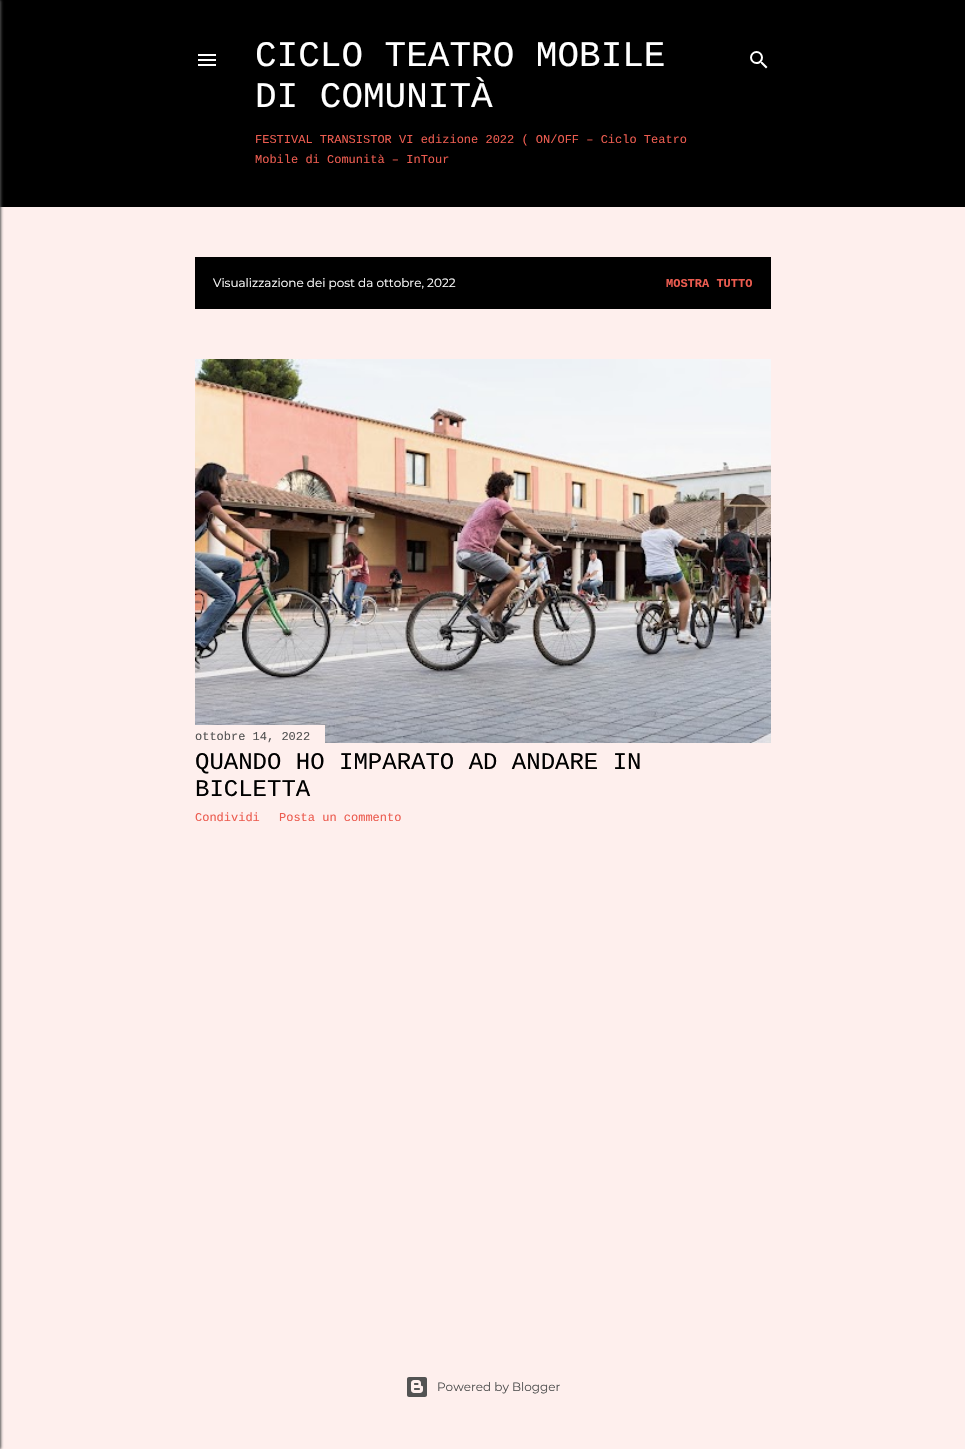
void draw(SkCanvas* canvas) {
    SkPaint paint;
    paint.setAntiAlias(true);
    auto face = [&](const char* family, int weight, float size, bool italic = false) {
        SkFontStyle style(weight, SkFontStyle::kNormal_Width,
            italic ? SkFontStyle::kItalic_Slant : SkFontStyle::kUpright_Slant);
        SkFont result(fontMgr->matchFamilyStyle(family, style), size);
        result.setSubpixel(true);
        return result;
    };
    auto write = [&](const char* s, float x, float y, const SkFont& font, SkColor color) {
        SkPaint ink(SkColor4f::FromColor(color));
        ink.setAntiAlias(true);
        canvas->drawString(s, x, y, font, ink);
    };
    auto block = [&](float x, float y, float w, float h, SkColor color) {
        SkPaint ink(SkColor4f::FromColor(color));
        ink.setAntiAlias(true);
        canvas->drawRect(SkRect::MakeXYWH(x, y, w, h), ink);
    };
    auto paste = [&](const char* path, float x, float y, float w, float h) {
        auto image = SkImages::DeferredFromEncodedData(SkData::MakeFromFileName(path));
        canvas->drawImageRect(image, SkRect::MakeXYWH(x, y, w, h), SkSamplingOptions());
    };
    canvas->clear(SkColorSetRGB(254, 239, 237));
    block(0, 0, 965, 207, SK_ColorBLACK);
    paint.setColor(SkColorSetRGB(83, 83, 83));
    paint.setMaskFilter(SkMaskFilter::MakeBlur(kNormal_SkBlurStyle, 1.5f));
    canvas->drawRect(SkRect::MakeXYWH(-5, 0, 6, 1449), paint);
    paint.setMaskFilter(nullptr);
    paste("pic1.png", 198, 54, 18, 12);
    auto kFont1 = face("Liberation Mono", 400, 36);
    write("CICLO TEATRO MOBILE", 255, 66, kFont1, SK_ColorWHITE);
    write("DI COMUNITÀ", 255, 107, kFont1, SK_ColorWHITE);
    auto kFont2 = face("Liberation Mono", 400, 12);
    write("FESTIVAL TRANSISTOR VI edizione 2022 ( ON/OFF – Ciclo Teatro", 255, 143, kFont2, SkColorSetRGB(236, 92, 80));
    write("Mobile di Comunità – InTour", 255, 163, kFont2, SkColorSetRGB(236, 92, 80));
    paste("pic2.png", 750, 51, 18, 18);
    block(195, 257, 576, 52, SK_ColorBLACK);
    auto kFont3 = face("Montserrat", 400, 12);
    write("Visualizzazione dei post da ottobre, 2022", 213, 287, kFont3, SK_ColorWHITE);
    auto kFont4 = face("Liberation Mono", 700, 12);
    write("MOSTRA TUTTO", 666, 287, kFont4, SkColorSetRGB(236, 92, 80));
    paste("pic3.png", 195, 359, 576, 384);
    block(195, 725, 130, 18, SkColorSetRGB(254, 239, 237));
    write("ottobre 14, 2022", 195, 740, kFont2, SkColorSetRGB(83, 83, 83));
    auto kFont5 = face("Liberation Mono", 400, 24);
    write("QUANDO HO IMPARATO AD ANDARE IN", 195, 769, kFont5, SK_ColorBLACK);
    write("BICLETTA", 195, 796, kFont5, SK_ColorBLACK);
    write("Condividi", 195, 821, kFont2, SkColorSetRGB(236, 92, 80));
    write("Posta un commento", 279, 821, kFont2, SkColorSetRGB(236, 92, 80));
    paste("pic4.png", 407, 1377, 20, 20);
    write("Powered by Blogger", 437, 1391, kFont3, SkColorSetRGB(83, 83, 83));
}
